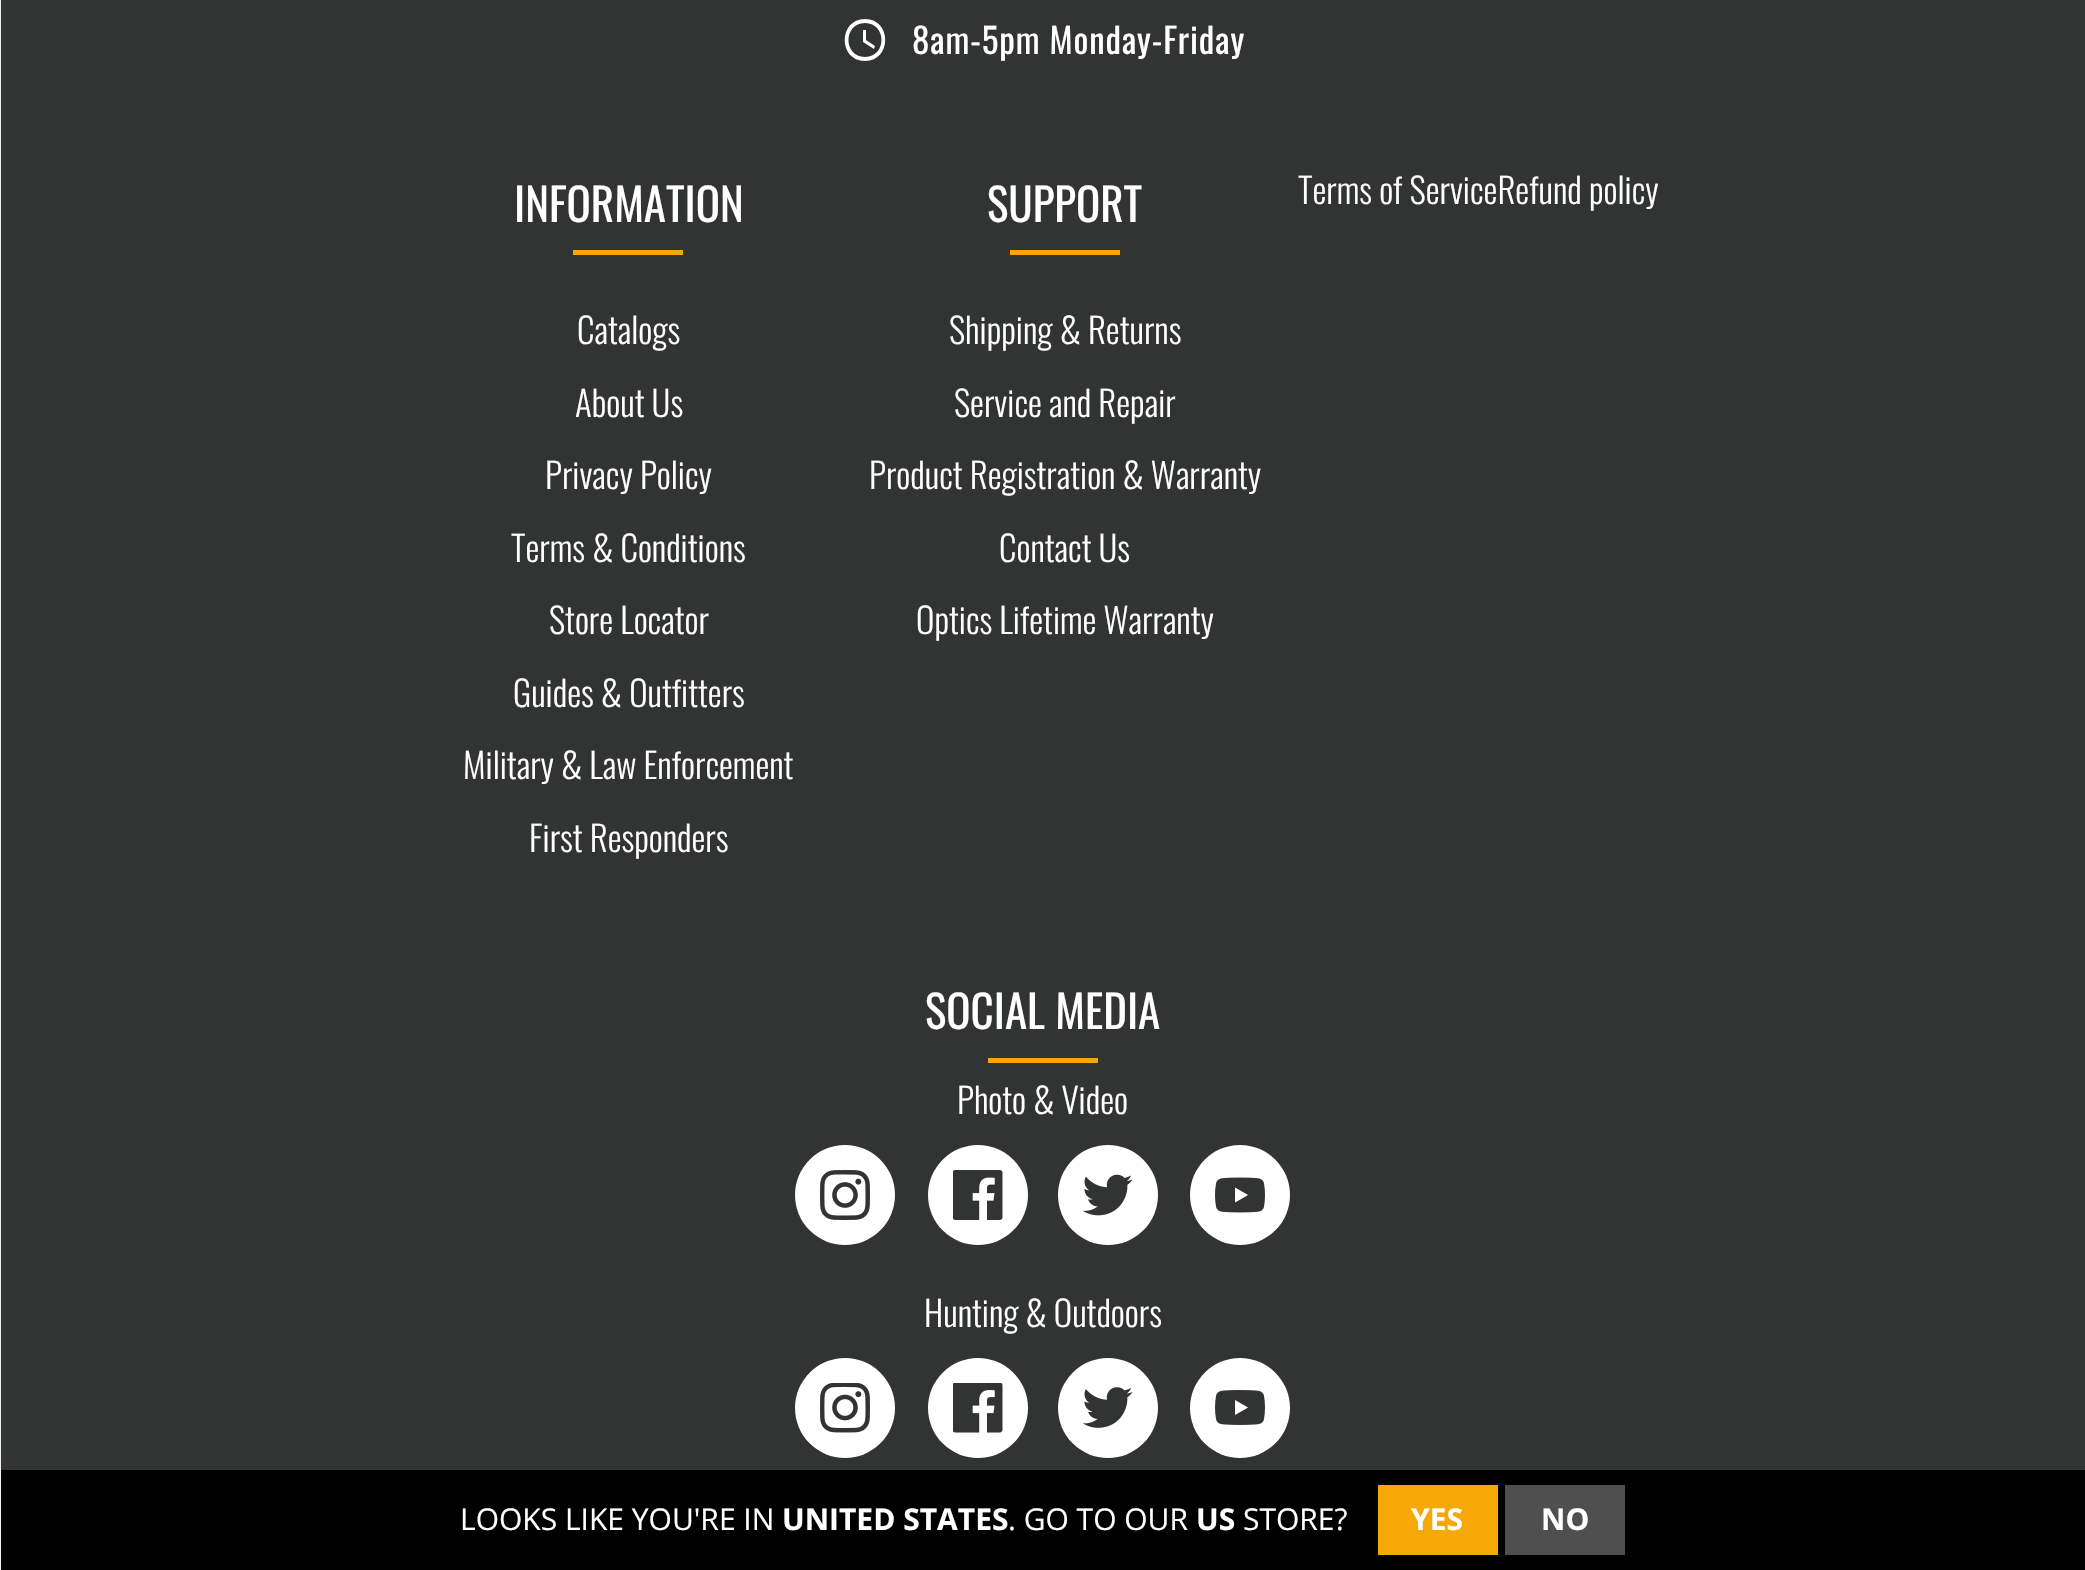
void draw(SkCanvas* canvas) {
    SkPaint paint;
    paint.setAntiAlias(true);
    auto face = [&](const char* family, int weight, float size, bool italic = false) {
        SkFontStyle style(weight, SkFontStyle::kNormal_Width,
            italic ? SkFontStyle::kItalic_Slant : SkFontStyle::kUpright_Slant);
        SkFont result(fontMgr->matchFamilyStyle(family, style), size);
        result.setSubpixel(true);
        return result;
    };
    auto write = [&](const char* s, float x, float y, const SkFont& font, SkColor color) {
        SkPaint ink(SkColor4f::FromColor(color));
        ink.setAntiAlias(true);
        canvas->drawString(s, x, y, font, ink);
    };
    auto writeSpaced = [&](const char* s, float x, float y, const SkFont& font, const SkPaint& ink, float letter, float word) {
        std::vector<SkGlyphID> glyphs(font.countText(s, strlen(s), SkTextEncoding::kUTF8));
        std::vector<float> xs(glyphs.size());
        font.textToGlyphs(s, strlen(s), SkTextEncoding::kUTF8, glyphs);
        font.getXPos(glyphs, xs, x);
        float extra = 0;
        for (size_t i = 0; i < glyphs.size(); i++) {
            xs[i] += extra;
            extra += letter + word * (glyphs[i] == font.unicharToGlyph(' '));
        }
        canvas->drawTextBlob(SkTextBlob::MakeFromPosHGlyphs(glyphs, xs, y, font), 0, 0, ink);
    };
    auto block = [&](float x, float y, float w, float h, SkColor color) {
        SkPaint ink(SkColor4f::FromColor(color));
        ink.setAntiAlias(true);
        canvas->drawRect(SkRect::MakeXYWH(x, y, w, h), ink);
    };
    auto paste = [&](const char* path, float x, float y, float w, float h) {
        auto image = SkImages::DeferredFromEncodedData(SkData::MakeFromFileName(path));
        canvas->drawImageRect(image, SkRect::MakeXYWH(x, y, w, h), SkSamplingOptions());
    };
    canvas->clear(SkColorSetRGB(50, 51, 51));
    block(0, 0, 1, 1570, SkColorSetRGB(241, 241, 241));
    paint.setColor(SK_ColorWHITE);
    canvas->drawPath(SkPathBuilder().moveTo(865, 19).cubicTo(838, 19, 838, 61, 865, 61).cubicTo(892, 61, 892, 19, 865, 19).close().moveTo(865, 57).cubicTo(843, 57, 843, 23, 865, 23).cubicTo(887, 23, 887, 57, 865, 57).close().moveTo(866, 30).lineTo(863, 30).lineTo(863, 42).lineTo(874, 49).lineTo(875, 46).lineTo(866, 40).close().detach(), paint);
    auto kFont1 = face("Oswald", 400, 35);
    writeSpaced("8am-5pm Monday-Friday", 912, 54, kFont1, paint, 0.9f, 0);
    auto kFont2 = face("Oswald", 400, 45);
    write("INFORMATION", 514, 222, kFont2, SK_ColorWHITE);
    block(573, 250, 110, 5, SkColorSetRGB(246, 168, 6));
    auto kFont3 = face("Oswald", 300, 35);
    write("Catalogs", 577, 344, kFont3, SK_ColorWHITE);
    write("About Us", 575, 417, kFont3, SK_ColorWHITE);
    write("Privacy Policy", 545, 489, kFont3, SK_ColorWHITE);
    write("Terms & Conditions", 511, 562, kFont3, SK_ColorWHITE);
    write("Store Locator", 549, 634, kFont3, SK_ColorWHITE);
    write("Guides & Outfitters", 513, 707, kFont3, SK_ColorWHITE);
    write("Military & Law Enforcement", 463, 779, kFont3, SK_ColorWHITE);
    write("First Responders", 529, 852, kFont3, SK_ColorWHITE);
    write("SUPPORT", 987, 222, kFont2, SK_ColorWHITE);
    block(1010, 250, 110, 5, SkColorSetRGB(246, 168, 6));
    write("Shipping & Returns", 949, 344, kFont3, SK_ColorWHITE);
    write("Service and Repair", 954, 417, kFont3, SK_ColorWHITE);
    write("Product Registration & Warranty", 869, 489, kFont3, SK_ColorWHITE);
    write("Contact Us", 999, 562, kFont3, SK_ColorWHITE);
    write("Optics Lifetime Warranty", 916, 634, kFont3, SK_ColorWHITE);
    write("Terms of ServiceRefund policy", 1298, 204, kFont3, SK_ColorWHITE);
    write("SOCIAL MEDIA", 925, 1029, kFont2, SK_ColorWHITE);
    block(988, 1058, 110, 5, SkColorSetRGB(246, 168, 6));
    write("Photo & Video", 957, 1114, kFont3, SK_ColorWHITE);
    canvas->drawCircle(845, 1195, 50, paint);
    paste("pic1.png", 820, 1170, 50, 50);
    canvas->drawCircle(978, 1195, 50, paint);
    paste("pic2.png", 953, 1170, 50, 50);
    canvas->drawCircle(1108, 1195, 50, paint);
    paste("pic3.png", 1083, 1174, 50, 42);
    canvas->drawCircle(1240, 1195, 50, paint);
    paste("pic4.png", 1215, 1177, 50, 36);
    write("Hunting & Outdoors", 924, 1327, kFont3, SK_ColorWHITE);
    canvas->drawCircle(845, 1408, 50, paint);
    paste("pic5.png", 820, 1383, 50, 50);
    canvas->drawCircle(978, 1408, 50, paint);
    paste("pic6.png", 953, 1383, 50, 50);
    canvas->drawCircle(1108, 1408, 50, paint);
    paste("pic7.png", 1083, 1387, 50, 41);
    canvas->drawCircle(1240, 1408, 50, paint);
    paste("pic8.png", 1215, 1390, 50, 35);
    block(1, 1470, 2084, 100, SK_ColorBLACK);
    auto kFont4 = face("Open Sans", 400, 30);
    write("LOOKS LIKE YOU'RE IN", 460, 1530, kFont4, SK_ColorWHITE);
    auto kFont5 = face("Open Sans", 700, 30);
    write("UNITED STATES", 782, 1530, kFont5, SK_ColorWHITE);
    write(". GO TO OUR", 1008, 1530, kFont4, SK_ColorWHITE);
    write("US", 1196, 1530, kFont5, SK_ColorWHITE);
    write("STORE?", 1243, 1530, kFont4, SK_ColorWHITE);
    block(1378, 1485, 120, 70, SkColorSetRGB(246, 168, 6));
    write("YES", 1411, 1530, kFont5, SK_ColorWHITE);
    block(1505, 1485, 120, 70, SkColorSetRGB(79, 79, 79));
    write("NO", 1541, 1530, kFont5, SK_ColorWHITE);
}
